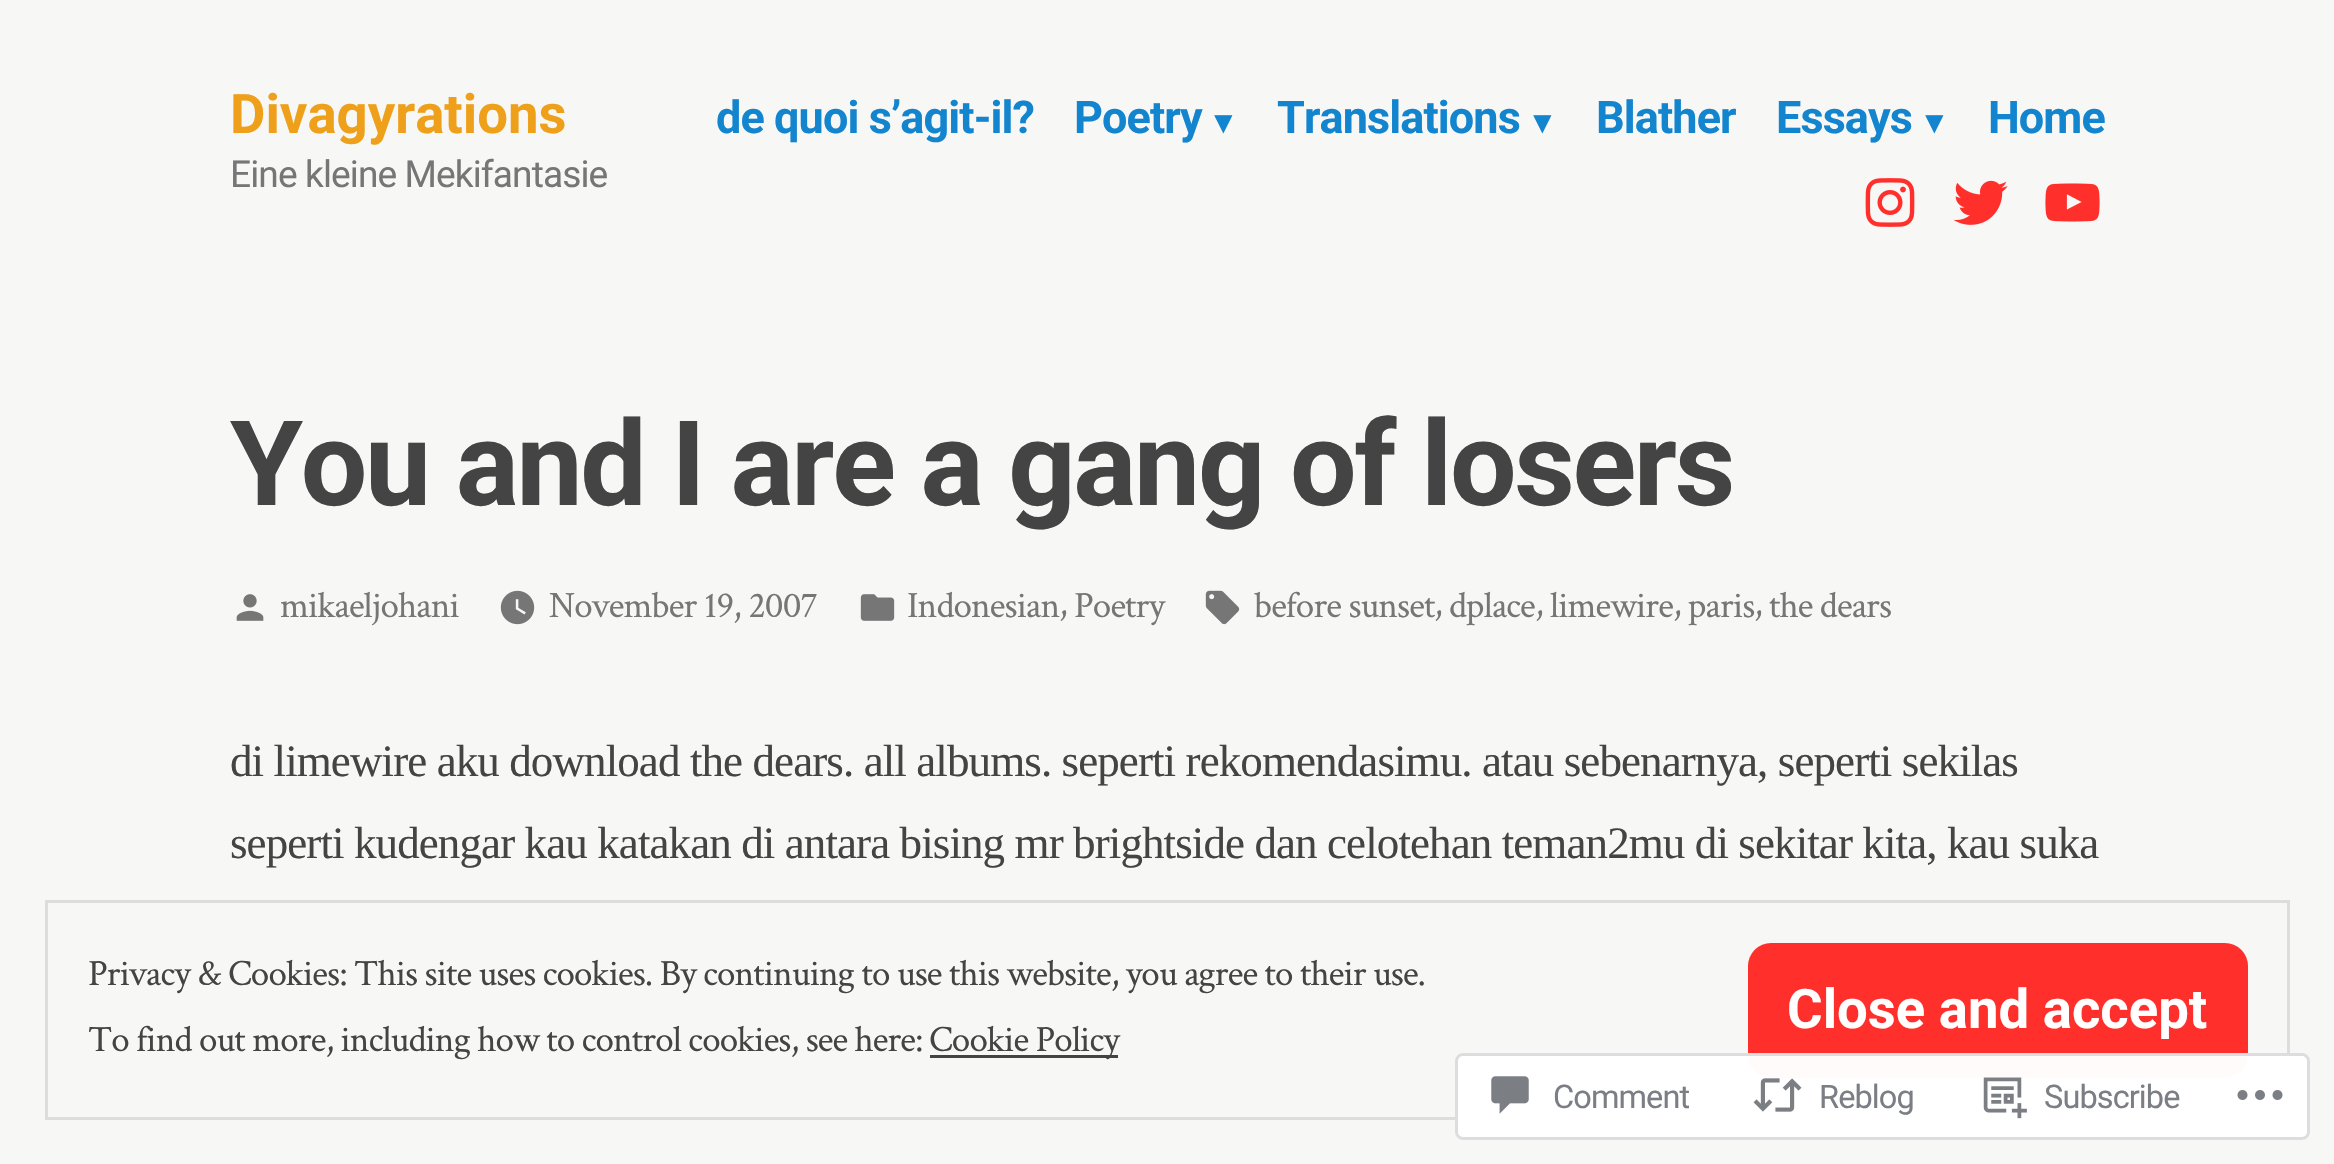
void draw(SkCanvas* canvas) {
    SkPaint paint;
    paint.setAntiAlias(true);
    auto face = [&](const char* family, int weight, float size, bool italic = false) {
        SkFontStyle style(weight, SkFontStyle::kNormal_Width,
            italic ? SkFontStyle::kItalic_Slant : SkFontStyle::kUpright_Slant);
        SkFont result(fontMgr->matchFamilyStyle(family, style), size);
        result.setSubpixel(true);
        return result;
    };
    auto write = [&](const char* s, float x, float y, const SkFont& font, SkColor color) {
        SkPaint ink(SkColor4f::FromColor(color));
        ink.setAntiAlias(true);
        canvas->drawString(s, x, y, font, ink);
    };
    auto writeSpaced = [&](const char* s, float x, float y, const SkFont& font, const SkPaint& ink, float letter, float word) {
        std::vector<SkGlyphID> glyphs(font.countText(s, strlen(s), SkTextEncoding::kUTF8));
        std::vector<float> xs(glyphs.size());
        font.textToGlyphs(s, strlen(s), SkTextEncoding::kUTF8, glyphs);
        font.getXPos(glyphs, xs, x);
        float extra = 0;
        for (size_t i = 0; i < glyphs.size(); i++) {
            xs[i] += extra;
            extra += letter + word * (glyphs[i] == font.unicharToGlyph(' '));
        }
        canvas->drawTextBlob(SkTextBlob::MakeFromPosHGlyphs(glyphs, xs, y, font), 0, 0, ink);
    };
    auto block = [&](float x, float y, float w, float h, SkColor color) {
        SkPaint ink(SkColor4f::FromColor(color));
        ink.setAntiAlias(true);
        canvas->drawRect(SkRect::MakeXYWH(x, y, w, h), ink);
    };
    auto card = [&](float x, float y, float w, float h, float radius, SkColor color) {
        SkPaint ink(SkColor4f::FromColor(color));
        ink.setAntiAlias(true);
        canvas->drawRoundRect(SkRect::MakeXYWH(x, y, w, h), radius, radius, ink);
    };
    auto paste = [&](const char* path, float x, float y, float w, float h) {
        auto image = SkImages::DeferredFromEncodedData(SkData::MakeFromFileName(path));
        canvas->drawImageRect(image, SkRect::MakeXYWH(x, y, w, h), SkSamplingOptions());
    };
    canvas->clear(SkColorSetRGB(247, 247, 246));
    auto kFont1 = face("Roboto", 700, 54.5f);
    write("Divagyrations", 230, 133, kFont1, SkColorSetRGB(238, 160, 26));
    auto kFont2 = face("Roboto", 400, 37.1f);
    paint.setColor(SkColorSetRGB(118, 118, 118));
    writeSpaced("Eine kleine Mekifantasie", 230, 187, kFont2, paint, -0.9f, 0);
    auto kFont3 = face("Roboto", 700, 45);
    paint.setColor(SkColorSetRGB(18, 133, 206));
    writeSpaced("de quoi s’agit-il?", 716, 133, kFont3, paint, -0.9f, 0);
    writeSpaced("Poetry", 1074, 133, kFont3, paint, -0.9f, 0);
    auto kFont4 = face("Liberation Sans", 700, 31);
    writeSpaced("▼", 1208, 133, kFont4, paint, -0.9f, 0);
    writeSpaced("Translations", 1277, 133, kFont3, paint, -0.9f, 0);
    writeSpaced("▼", 1527, 133, kFont4, paint, -0.9f, 0);
    writeSpaced("Blather", 1596, 133, kFont3, paint, -0.9f, 0);
    writeSpaced("Essays", 1776, 133, kFont3, paint, -0.9f, 0);
    writeSpaced("▼", 1919, 133, kFont4, paint, -0.9f, 0);
    writeSpaced("Home", 1988, 133, kFont3, paint, -0.9f, 0);
    paste("pic1.png", 1865, 178, 50, 49);
    paste("pic2.png", 1953, 180, 55, 45);
    paste("pic3.png", 2045, 183, 55, 39);
    auto kFont5 = face("Roboto", 700, 118);
    paint.setColor(SkColorSetRGB(68, 68, 68));
    writeSpaced("You and I are a gang of losers", 230, 505, kFont5, paint, -2.35f, 0);
    paste("pic4.png", 236, 594, 28, 27);
    auto kFont6 = face("Crimson Text", 400, 37.1f);
    paint.setColor(SkColorSetRGB(118, 118, 118));
    writeSpaced("mikaeljohani", 280, 617, kFont6, paint, -0.9f, 0);
    paste("pic5.png", 500, 590, 35, 35);
    writeSpaced("November 19, 2007", 549, 617, kFont6, paint, -0.9f, 0);
    paste("pic6.png", 860, 594, 35, 27);
    writeSpaced("Indonesian", 907, 617, kFont6, paint, -0.9f, 0);
    writeSpaced(",", 1059, 615, kFont6, paint, -0.9f, 0);
    writeSpaced("Poetry", 1074, 617, kFont6, paint, -0.9f, 0);
    paste("pic7.png", 1205, 590, 35, 35);
    writeSpaced("before sunset", 1254, 617, kFont6, paint, -0.9f, 0);
    writeSpaced(",", 1434, 615, kFont6, paint, -0.9f, 0);
    writeSpaced("dplace", 1449, 617, kFont6, paint, -0.9f, 0);
    writeSpaced(",", 1535, 615, kFont6, paint, -0.9f, 0);
    writeSpaced("limewire", 1550, 617, kFont6, paint, -0.9f, 0);
    writeSpaced(",", 1673, 615, kFont6, paint, -0.9f, 0);
    writeSpaced("paris", 1688, 617, kFont6, paint, -0.9f, 0);
    writeSpaced(",", 1754, 615, kFont6, paint, -0.9f, 0);
    writeSpaced("the dears", 1769, 617, kFont6, paint, -0.9f, 0);
    auto kFont7 = face("Liberation Serif", 400, 45);
    paint.setColor(SkColorSetRGB(68, 68, 68));
    writeSpaced("di limewire aku download the dears. all albums. seperti rekomendasimu. atau sebenarnya, seperti sekilas", 230, 776, kFont7, paint, -0.9f, 0);
    writeSpaced("seperti kudengar kau katakan di antara bising mr brightside dan celotehan teman2mu di sekitar kita, kau suka", 230, 858, kFont7, paint, -0.9f, 0);
    paint.setStyle(SkPaint::kStroke_Style);
    paint.setStrokeWidth(3);
    paint.setColor(SkColorSetRGB(221, 221, 221));
    canvas->drawRect(SkRect::MakeXYWH(46.5f, 901.5f, 2242, 217), paint);
    paint.setStyle(SkPaint::kFill_Style);
    paint.setColor(SkColorSetRGB(68, 68, 68));
    writeSpaced("Privacy & Cookies: This site uses cookies. By continuing to use this website, you agree to their use.", 88, 985, kFont6, paint, -0.9f, 0);
    writeSpaced("To find out more, including how to control cookies, see here:", 88, 1051, kFont6, paint, -0.9f, 0);
    block(930, 1055, 188, 3, SkColorSetRGB(68, 68, 68));
    writeSpaced("Cookie Policy", 929, 1051, kFont6, paint, -0.9f, 0);
    card(1748, 943, 500, 135, 23, SkColorSetRGB(255, 48, 44));
    write("Close and accept", 1787, 1028, kFont1, SK_ColorWHITE);
    card(1455, 1053, 855, 87, 8, SkColorSetARGB(250, 255, 255, 255));
    paint.setStyle(SkPaint::kStroke_Style);
    paint.setColor(SkColorSetARGB(250, 220, 220, 222));
    canvas->drawRoundRect(SkRect::MakeXYWH(1456.5f, 1054.5f, 852, 84), 6.5f, 6.5f, paint);
    paste("pic8.png", 1491, 1076, 38, 38);
    auto kFont8 = face("Roboto", 400, 32.5f);
    paint.setStyle(SkPaint::kFill_Style);
    paint.setColor(SkColorSetRGB(123, 126, 132));
    writeSpaced("Comment", 1553, 1108, kFont8, paint, -0.9f, 0);
    paste("pic9.png", 1753, 1078, 49, 34);
    writeSpaced("Reblog", 1819, 1108, kFont8, paint, -0.9f, 0);
    paste("pic10.png", 1983, 1077, 44, 42);
    writeSpaced("Subscribe", 2044, 1108, kFont8, paint, -0.9f, 0);
    paste("pic11.png", 2237, 1090, 46, 10);
}
